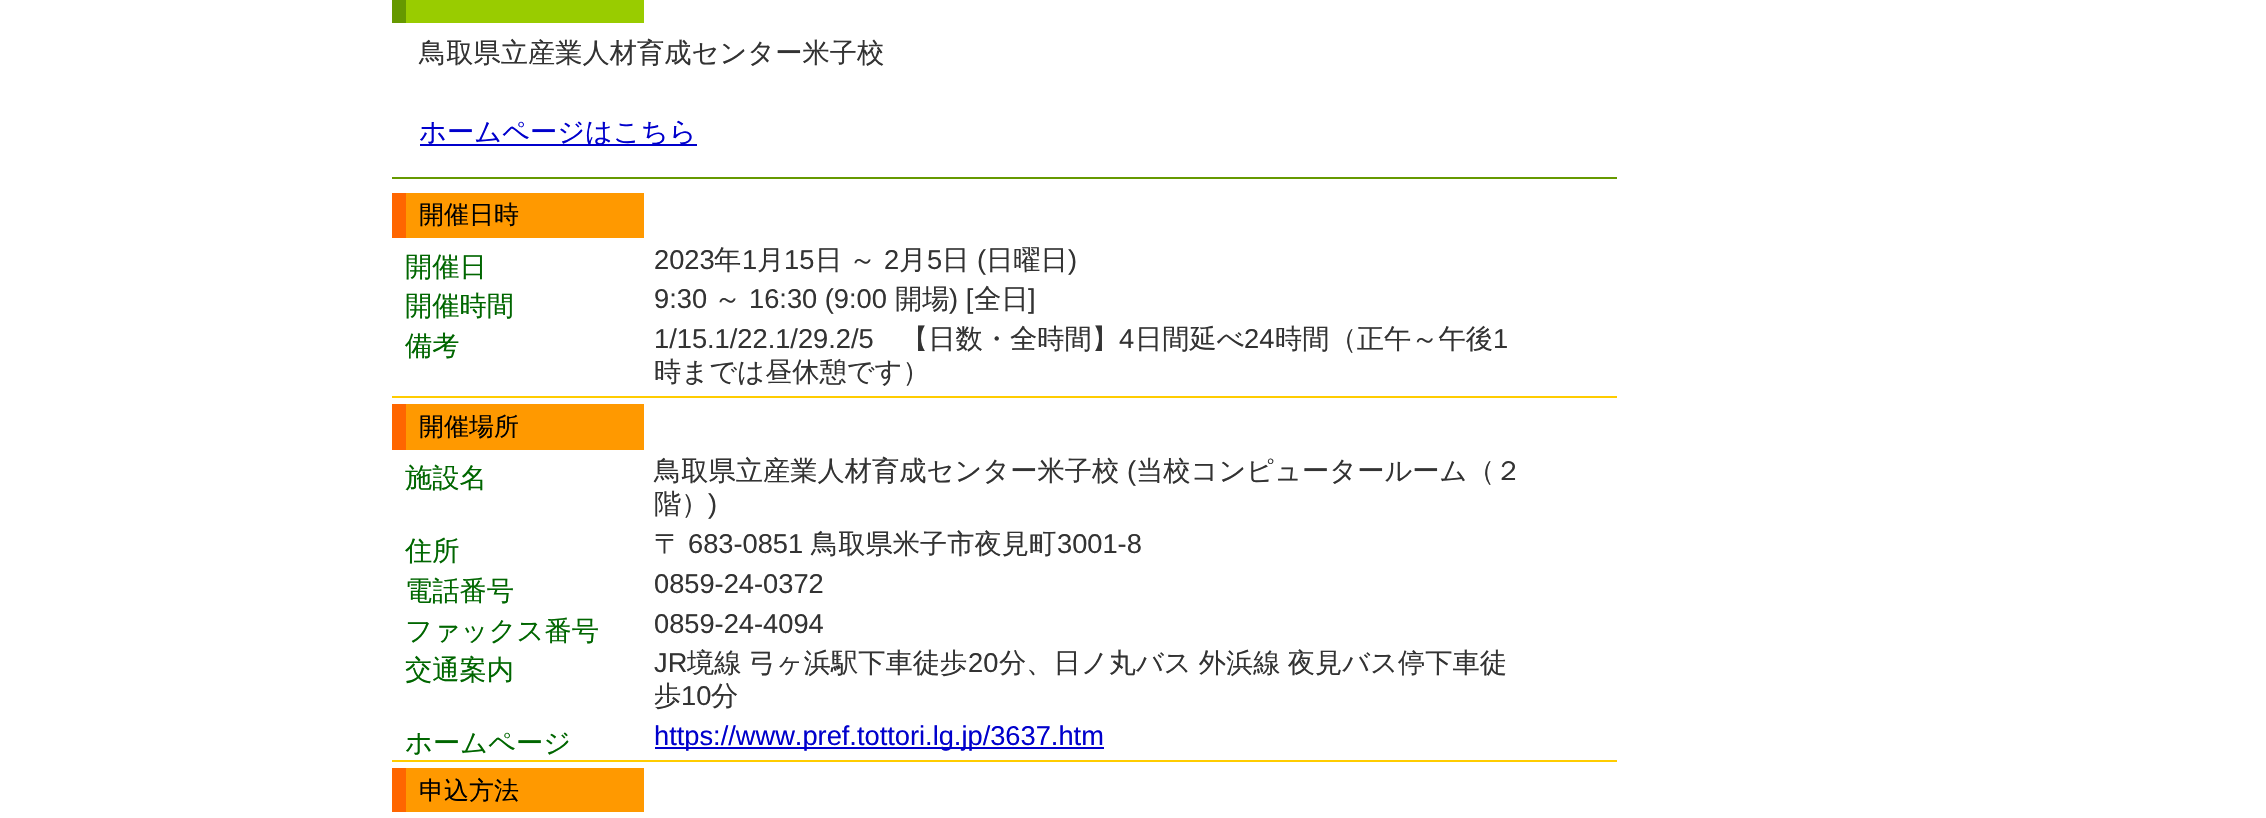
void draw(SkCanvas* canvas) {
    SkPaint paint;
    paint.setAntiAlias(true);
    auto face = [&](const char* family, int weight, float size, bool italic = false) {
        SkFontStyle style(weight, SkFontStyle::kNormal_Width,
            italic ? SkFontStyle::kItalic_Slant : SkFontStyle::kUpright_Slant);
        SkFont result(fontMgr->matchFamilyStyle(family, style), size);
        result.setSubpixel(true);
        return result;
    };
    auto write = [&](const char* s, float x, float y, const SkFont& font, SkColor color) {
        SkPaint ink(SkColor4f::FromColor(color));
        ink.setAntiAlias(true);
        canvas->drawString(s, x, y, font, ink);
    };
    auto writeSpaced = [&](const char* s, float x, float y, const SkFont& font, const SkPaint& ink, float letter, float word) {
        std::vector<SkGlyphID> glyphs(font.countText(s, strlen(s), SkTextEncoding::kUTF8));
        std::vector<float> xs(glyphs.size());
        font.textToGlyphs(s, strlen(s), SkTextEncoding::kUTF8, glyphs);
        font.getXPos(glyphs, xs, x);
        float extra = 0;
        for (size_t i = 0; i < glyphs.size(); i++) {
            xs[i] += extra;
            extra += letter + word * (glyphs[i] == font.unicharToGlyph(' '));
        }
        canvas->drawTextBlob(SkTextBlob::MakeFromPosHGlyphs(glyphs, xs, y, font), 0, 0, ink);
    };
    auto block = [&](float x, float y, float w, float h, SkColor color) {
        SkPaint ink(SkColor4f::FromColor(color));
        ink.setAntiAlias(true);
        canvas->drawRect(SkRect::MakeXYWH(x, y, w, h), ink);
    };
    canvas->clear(SK_ColorWHITE);
    block(392, 177, 1225, 2, SkColorSetRGB(102, 153, 0));
    block(406, 0, 238, 23, SkColorSetRGB(153, 204, 0));
    block(392, 0, 14, 23, SkColorSetRGB(102, 153, 0));
    auto kFont1 = face("WenQuanYi Zen Hei", 500, 27.25f);
    write("鳥取県立産業人材育成センター米子校", 419, 62, kFont1, SkColorSetRGB(51, 51, 51));
    block(420, 144, 277, 2, SkColorSetRGB(0, 0, 204));
    write("ホームページはこちら", 419, 141, kFont1, SkColorSetRGB(0, 0, 204));
    block(392, 396, 1225, 2, SkColorSetRGB(255, 204, 0));
    block(406, 193, 238, 45, SkColorSetRGB(255, 153, 0));
    block(392, 193, 14, 45, SkColorSetRGB(255, 102, 0));
    auto kFont2 = face("WenQuanYi Zen Hei", 500, 25);
    write("開催日時", 419, 223, kFont2, SK_ColorBLACK);
    write("開催日", 405, 276, kFont1, SkColorSetRGB(0, 102, 0));
    auto kFont3 = face("Liberation Sans", 400, 27.25f);
    write("2023", 654, 269, kFont3, SkColorSetRGB(51, 51, 51));
    write("年", 714, 269, kFont1, SkColorSetRGB(51, 51, 51));
    write("1", 742, 269, kFont3, SkColorSetRGB(51, 51, 51));
    write("月", 757, 269, kFont1, SkColorSetRGB(51, 51, 51));
    write("15", 784, 269, kFont3, SkColorSetRGB(51, 51, 51));
    write("日", 815, 269, kFont1, SkColorSetRGB(51, 51, 51));
    write("～", 849, 269, kFont1, SkColorSetRGB(51, 51, 51));
    write("2", 884, 269, kFont3, SkColorSetRGB(51, 51, 51));
    write("月", 899, 269, kFont1, SkColorSetRGB(51, 51, 51));
    write("5", 927, 269, kFont3, SkColorSetRGB(51, 51, 51));
    write("日", 942, 269, kFont1, SkColorSetRGB(51, 51, 51));
    write("(", 977, 269, kFont3, SkColorSetRGB(51, 51, 51));
    write("日曜日", 986, 269, kFont1, SkColorSetRGB(51, 51, 51));
    write(")", 1068, 269, kFont3, SkColorSetRGB(51, 51, 51));
    write("開催時間", 405, 315, kFont1, SkColorSetRGB(0, 102, 0));
    write("9:30", 654, 308, kFont3, SkColorSetRGB(51, 51, 51));
    write("～", 714, 308, kFont1, SkColorSetRGB(51, 51, 51));
    write("16:30 (9:00", 749, 308, kFont3, SkColorSetRGB(51, 51, 51));
    write("開場", 895, 308, kFont1, SkColorSetRGB(51, 51, 51));
    write(") [", 949, 308, kFont3, SkColorSetRGB(51, 51, 51));
    write("全日", 974, 308, kFont1, SkColorSetRGB(51, 51, 51));
    write("]", 1028, 308, kFont3, SkColorSetRGB(51, 51, 51));
    write("備考", 405, 355, kFont1, SkColorSetRGB(0, 102, 0));
    write("1/15.1/22.1/29.2/5", 654, 348, kFont3, SkColorSetRGB(51, 51, 51));
    write("【日数・全時間】", 901, 348, kFont1, SkColorSetRGB(51, 51, 51));
    write("4", 1119, 348, kFont3, SkColorSetRGB(51, 51, 51));
    write("日間延べ", 1135, 348, kFont1, SkColorSetRGB(51, 51, 51));
    write("24", 1244, 348, kFont3, SkColorSetRGB(51, 51, 51));
    write("時間（正午～午後", 1275, 348, kFont1, SkColorSetRGB(51, 51, 51));
    write("1", 1493, 348, kFont3, SkColorSetRGB(51, 51, 51));
    write("時までは昼休憩です）", 654, 381, kFont1, SkColorSetRGB(51, 51, 51));
    block(392, 760, 1225, 2, SkColorSetRGB(255, 204, 0));
    block(406, 404, 238, 46, SkColorSetRGB(255, 153, 0));
    block(392, 404, 14, 46, SkColorSetRGB(255, 102, 0));
    write("開催場所", 419, 435, kFont2, SK_ColorBLACK);
    write("施設名", 405, 487, kFont1, SkColorSetRGB(0, 102, 0));
    write("鳥取県立産業人材育成センター米子校", 654, 480, kFont1, SkColorSetRGB(51, 51, 51));
    write("(", 1127, 480, kFont3, SkColorSetRGB(51, 51, 51));
    write("当校コンピュータールーム（２", 1136, 480, kFont1, SkColorSetRGB(51, 51, 51));
    write("階）", 654, 513, kFont1, SkColorSetRGB(51, 51, 51));
    write(")", 708, 513, kFont3, SkColorSetRGB(51, 51, 51));
    write("住所", 405, 560, kFont1, SkColorSetRGB(0, 102, 0));
    write("〒", 654, 553, kFont1, SkColorSetRGB(51, 51, 51));
    write("683-0851", 688, 553, kFont3, SkColorSetRGB(51, 51, 51));
    write("鳥取県米子市夜見町", 811, 553, kFont1, SkColorSetRGB(51, 51, 51));
    write("3001‐8", 1057, 553, kFont3, SkColorSetRGB(51, 51, 51));
    write("電話番号", 405, 600, kFont1, SkColorSetRGB(0, 102, 0));
    write("0859-24-0372", 654, 593, kFont3, SkColorSetRGB(51, 51, 51));
    write("ファックス番号", 405, 640, kFont1, SkColorSetRGB(0, 102, 0));
    write("0859-24-4094", 654, 633, kFont3, SkColorSetRGB(51, 51, 51));
    write("交通案内", 405, 679, kFont1, SkColorSetRGB(0, 102, 0));
    write("JR", 654, 672, kFont3, SkColorSetRGB(51, 51, 51));
    paint.setColor(SkColorSetRGB(51, 51, 51));
    writeSpaced("境線 弓ヶ浜駅下車徒歩", 687, 672, kFont1, paint, 0, -1);
    write("20", 968, 672, kFont3, SkColorSetRGB(51, 51, 51));
    writeSpaced("分、日ノ丸バス 外浜線 夜見バス停下車徒", 999, 672, kFont1, paint, 0, -1);
    write("歩", 654, 705, kFont1, SkColorSetRGB(51, 51, 51));
    write("10", 681, 705, kFont3, SkColorSetRGB(51, 51, 51));
    write("分", 711, 705, kFont1, SkColorSetRGB(51, 51, 51));
    write("ホームページ", 405, 752, kFont1, SkColorSetRGB(0, 102, 0));
    block(655, 747, 449, 2, SkColorSetRGB(0, 0, 204));
    write("https://www.pref.tottori.lg.jp/3637.htm", 654, 745, kFont3, SkColorSetRGB(0, 0, 204));
    block(406, 768, 238, 44, SkColorSetRGB(255, 153, 0));
    block(392, 768, 14, 44, SkColorSetRGB(255, 102, 0));
    write("申込方法", 419, 799, kFont2, SK_ColorBLACK);
}
